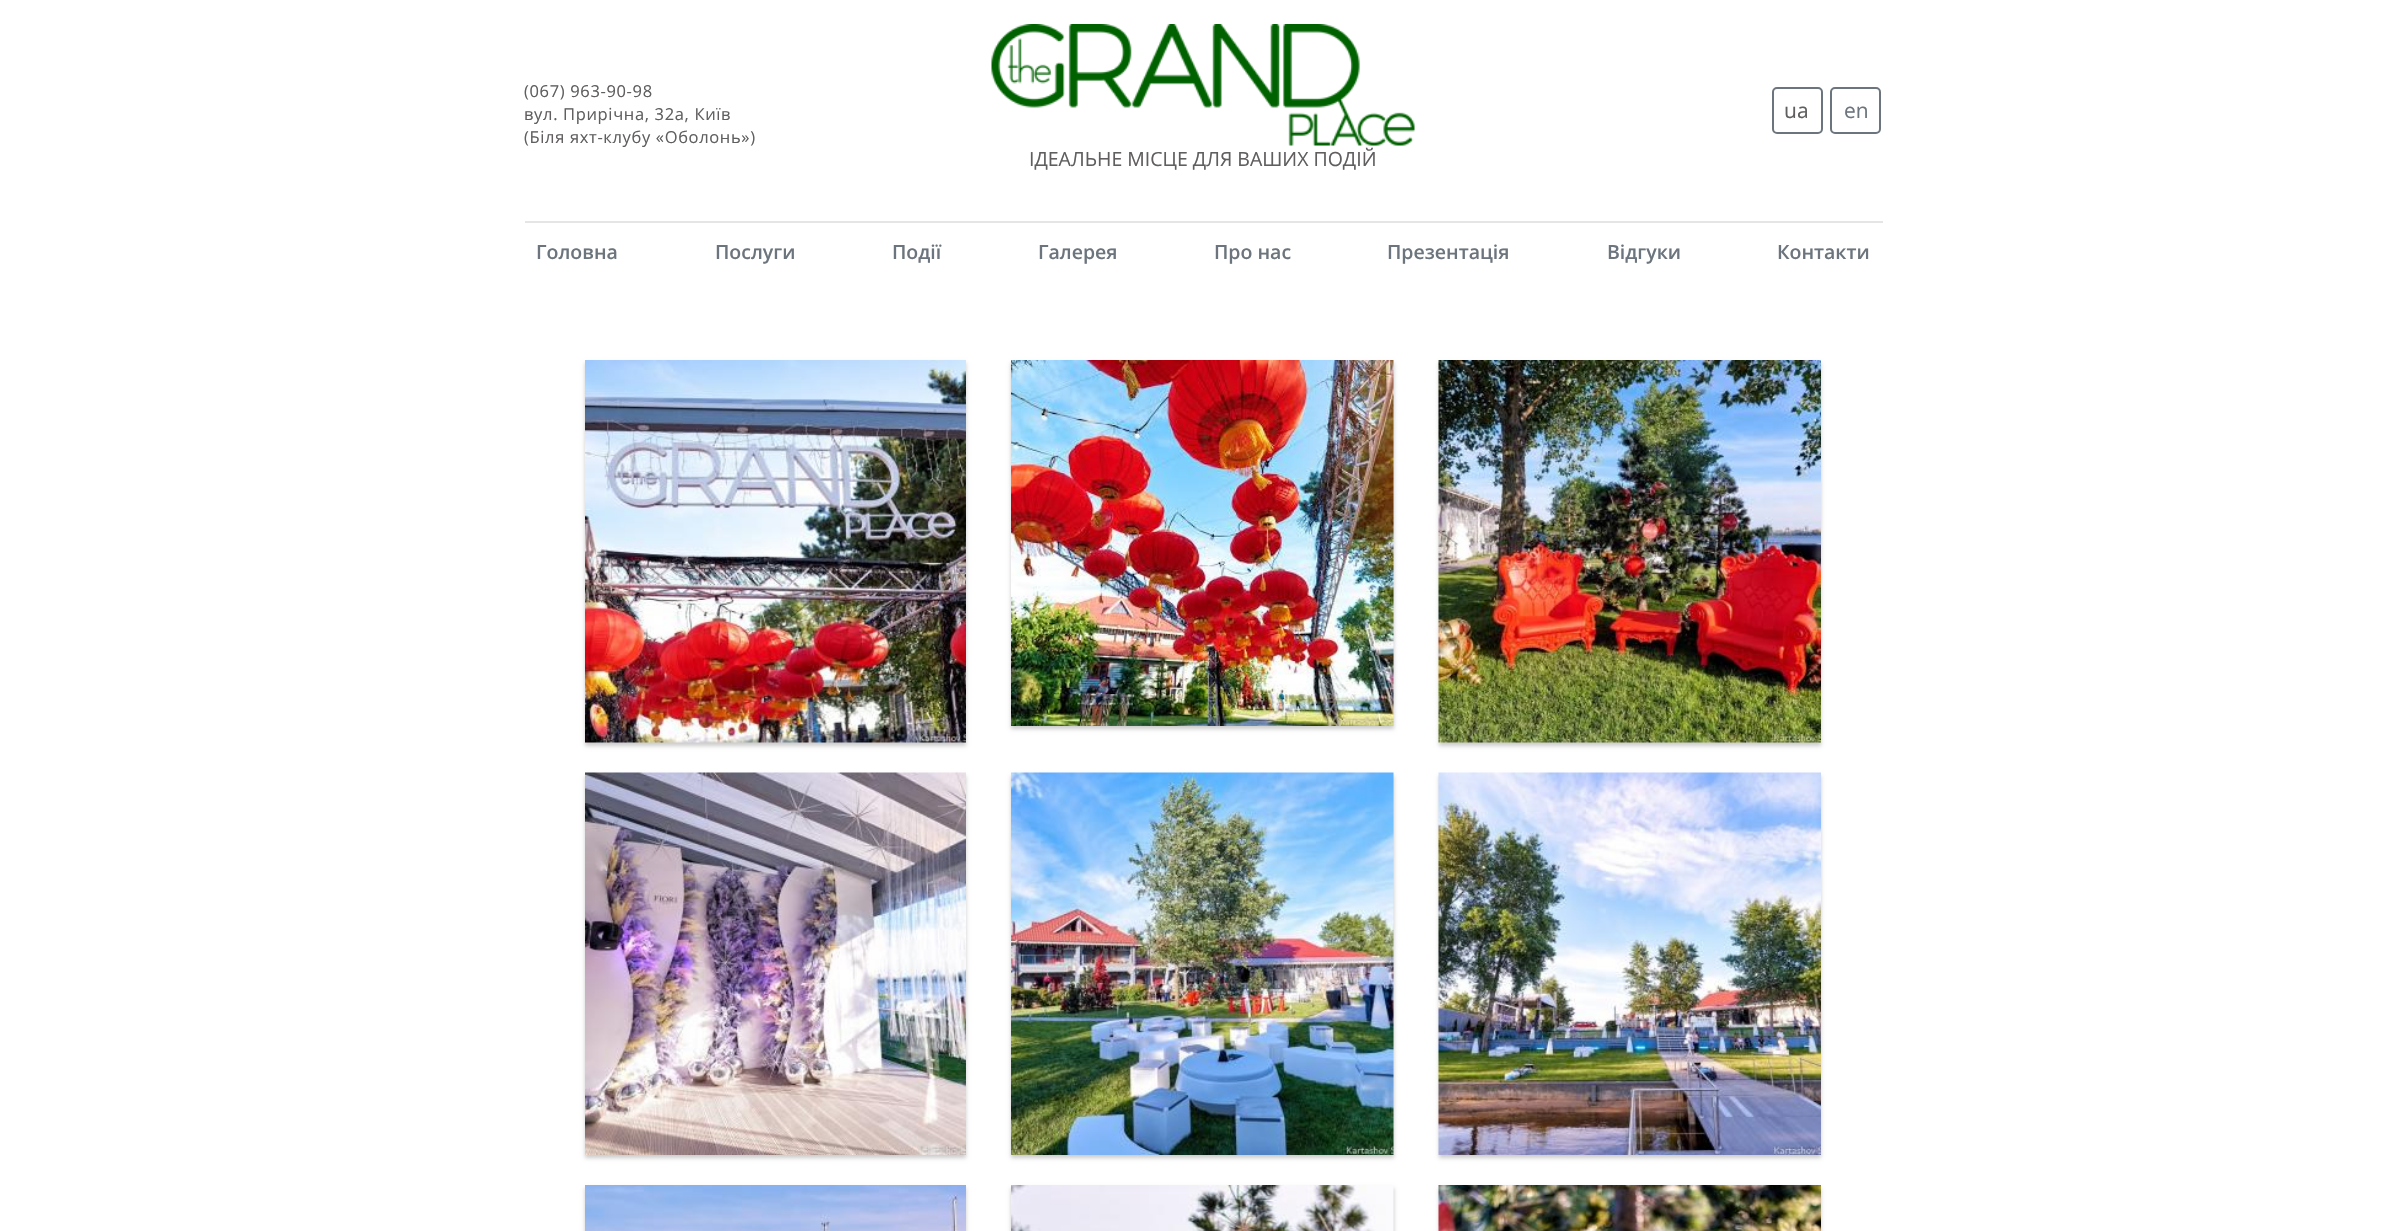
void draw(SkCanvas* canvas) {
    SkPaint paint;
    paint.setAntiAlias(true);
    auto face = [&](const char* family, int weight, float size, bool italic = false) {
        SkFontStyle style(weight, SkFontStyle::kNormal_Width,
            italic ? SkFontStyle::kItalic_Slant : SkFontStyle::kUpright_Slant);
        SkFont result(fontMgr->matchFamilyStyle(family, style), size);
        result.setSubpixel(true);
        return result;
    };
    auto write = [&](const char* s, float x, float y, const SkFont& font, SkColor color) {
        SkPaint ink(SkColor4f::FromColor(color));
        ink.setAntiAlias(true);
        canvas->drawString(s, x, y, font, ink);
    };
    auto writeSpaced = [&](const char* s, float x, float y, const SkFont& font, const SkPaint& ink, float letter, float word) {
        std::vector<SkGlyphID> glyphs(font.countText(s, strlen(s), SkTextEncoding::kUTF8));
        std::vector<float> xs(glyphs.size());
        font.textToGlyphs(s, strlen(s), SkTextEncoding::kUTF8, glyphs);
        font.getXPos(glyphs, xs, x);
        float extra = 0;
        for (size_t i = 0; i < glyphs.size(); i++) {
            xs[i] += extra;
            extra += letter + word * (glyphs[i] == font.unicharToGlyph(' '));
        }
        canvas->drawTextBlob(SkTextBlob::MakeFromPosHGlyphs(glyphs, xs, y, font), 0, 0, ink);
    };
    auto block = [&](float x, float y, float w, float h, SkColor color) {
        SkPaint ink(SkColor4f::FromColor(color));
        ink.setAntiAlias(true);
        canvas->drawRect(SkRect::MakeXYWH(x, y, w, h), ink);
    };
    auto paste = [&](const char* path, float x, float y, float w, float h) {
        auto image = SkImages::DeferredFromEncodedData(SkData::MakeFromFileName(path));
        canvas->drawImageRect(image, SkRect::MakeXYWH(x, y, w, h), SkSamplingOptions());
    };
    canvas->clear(SK_ColorWHITE);
    block(525, 221, 1358, 2, SkColorSetRGB(229, 229, 229));
    auto kFont1 = face("Open Sans", 400, 16.5f);
    paint.setColor(SkColorSetRGB(96, 94, 94));
    writeSpaced("(067) 963-90-98", 524, 97, kFont1, paint, 0.65f, 0);
    writeSpaced("вул. Прирічна, 32а, Київ", 524, 120, kFont1, paint, 0.65f, 0);
    writeSpaced("(Біля яхт-клубу «Оболонь»)", 524, 143, kFont1, paint, 0.65f, 0);
    paint.setStyle(SkPaint::kStroke_Style);
    paint.setStrokeWidth(2);
    paint.setColor(SkColorSetRGB(108, 117, 125));
    canvas->drawRoundRect(SkRect::MakeXYWH(1773, 88, 49, 45), 4, 4, paint);
    auto kFont2 = face("Open Sans", 400, 21);
    write("ua", 1784, 118, kFont2, SkColorSetRGB(96, 94, 94));
    canvas->drawRoundRect(SkRect::MakeXYWH(1831, 88, 49, 45), 4, 4, paint);
    write("en", 1844, 118, kFont2, SkColorSetRGB(108, 117, 125));
    paste("pic1.png", 991, 24, 424, 122);
    auto kFont3 = face("Open Sans", 400, 19.5f);
    write("ІДЕАЛЬНЕ МІСЦЕ ДЛЯ ВАШИХ ПОДІЙ", 1029, 166, kFont3, SkColorSetRGB(96, 94, 94));
    auto kFont4 = face("Open Sans", 600, 19.5f);
    write("Головна", 536, 259, kFont4, SkColorSetRGB(108, 117, 125));
    write("Послуги", 715, 259, kFont4, SkColorSetRGB(108, 117, 125));
    write("Події", 892, 259, kFont4, SkColorSetRGB(108, 117, 125));
    write("Галерея", 1038, 259, kFont4, SkColorSetRGB(108, 117, 125));
    write("Про нас", 1214, 259, kFont4, SkColorSetRGB(108, 117, 125));
    write("Презентація", 1387, 259, kFont4, SkColorSetRGB(108, 117, 125));
    write("Відгуки", 1607, 259, kFont4, SkColorSetRGB(108, 117, 125));
    write("Контакти", 1777, 259, kFont4, SkColorSetRGB(108, 117, 125));
    paint.setStyle(SkPaint::kFill_Style);
    paint.setColor(SkColorSetARGB(51, 0, 0, 0));
    paint.setMaskFilter(SkMaskFilter::MakeBlur(kNormal_SkBlurStyle, 2));
    canvas->drawRect(SkRect::MakeXYWH(585, 363, 381, 383), paint);
    paint.setMaskFilter(nullptr);
    paste("pic2.png", 585, 360, 381, 383);
    paint.setMaskFilter(SkMaskFilter::MakeBlur(kNormal_SkBlurStyle, 2));
    canvas->drawRect(SkRect::MakeXYWH(1011, 363, 383, 366), paint);
    paint.setMaskFilter(nullptr);
    paste("pic3.png", 1011, 360, 383, 366);
    paint.setMaskFilter(SkMaskFilter::MakeBlur(kNormal_SkBlurStyle, 2));
    canvas->drawRect(SkRect::MakeXYWH(1439, 363, 382, 383), paint);
    paint.setMaskFilter(nullptr);
    paste("pic4.png", 1438, 360, 383, 383);
    paint.setMaskFilter(SkMaskFilter::MakeBlur(kNormal_SkBlurStyle, 2));
    canvas->drawRect(SkRect::MakeXYWH(585, 776, 381, 382), paint);
    paint.setMaskFilter(nullptr);
    paste("pic5.png", 585, 772, 381, 383);
    paint.setMaskFilter(SkMaskFilter::MakeBlur(kNormal_SkBlurStyle, 2));
    canvas->drawRect(SkRect::MakeXYWH(1011, 776, 383, 382), paint);
    paint.setMaskFilter(nullptr);
    paste("pic6.png", 1011, 772, 383, 383);
    paint.setMaskFilter(SkMaskFilter::MakeBlur(kNormal_SkBlurStyle, 2));
    canvas->drawRect(SkRect::MakeXYWH(1439, 776, 382, 382), paint);
    paint.setMaskFilter(nullptr);
    paste("pic7.png", 1438, 772, 383, 383);
    paint.setMaskFilter(SkMaskFilter::MakeBlur(kNormal_SkBlurStyle, 2));
    canvas->drawRect(SkRect::MakeXYWH(585, 1188, 381, 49), paint);
    paint.setMaskFilter(nullptr);
    paste("pic8.png", 585, 1185, 381, 46);
    paint.setMaskFilter(SkMaskFilter::MakeBlur(kNormal_SkBlurStyle, 2));
    canvas->drawRect(SkRect::MakeXYWH(1011, 1188, 383, 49), paint);
    paint.setMaskFilter(nullptr);
    paste("pic9.png", 1011, 1185, 383, 46);
    paint.setMaskFilter(SkMaskFilter::MakeBlur(kNormal_SkBlurStyle, 2));
    canvas->drawRect(SkRect::MakeXYWH(1439, 1188, 382, 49), paint);
    paint.setMaskFilter(nullptr);
    paste("pic10.png", 1438, 1185, 383, 46);
}
